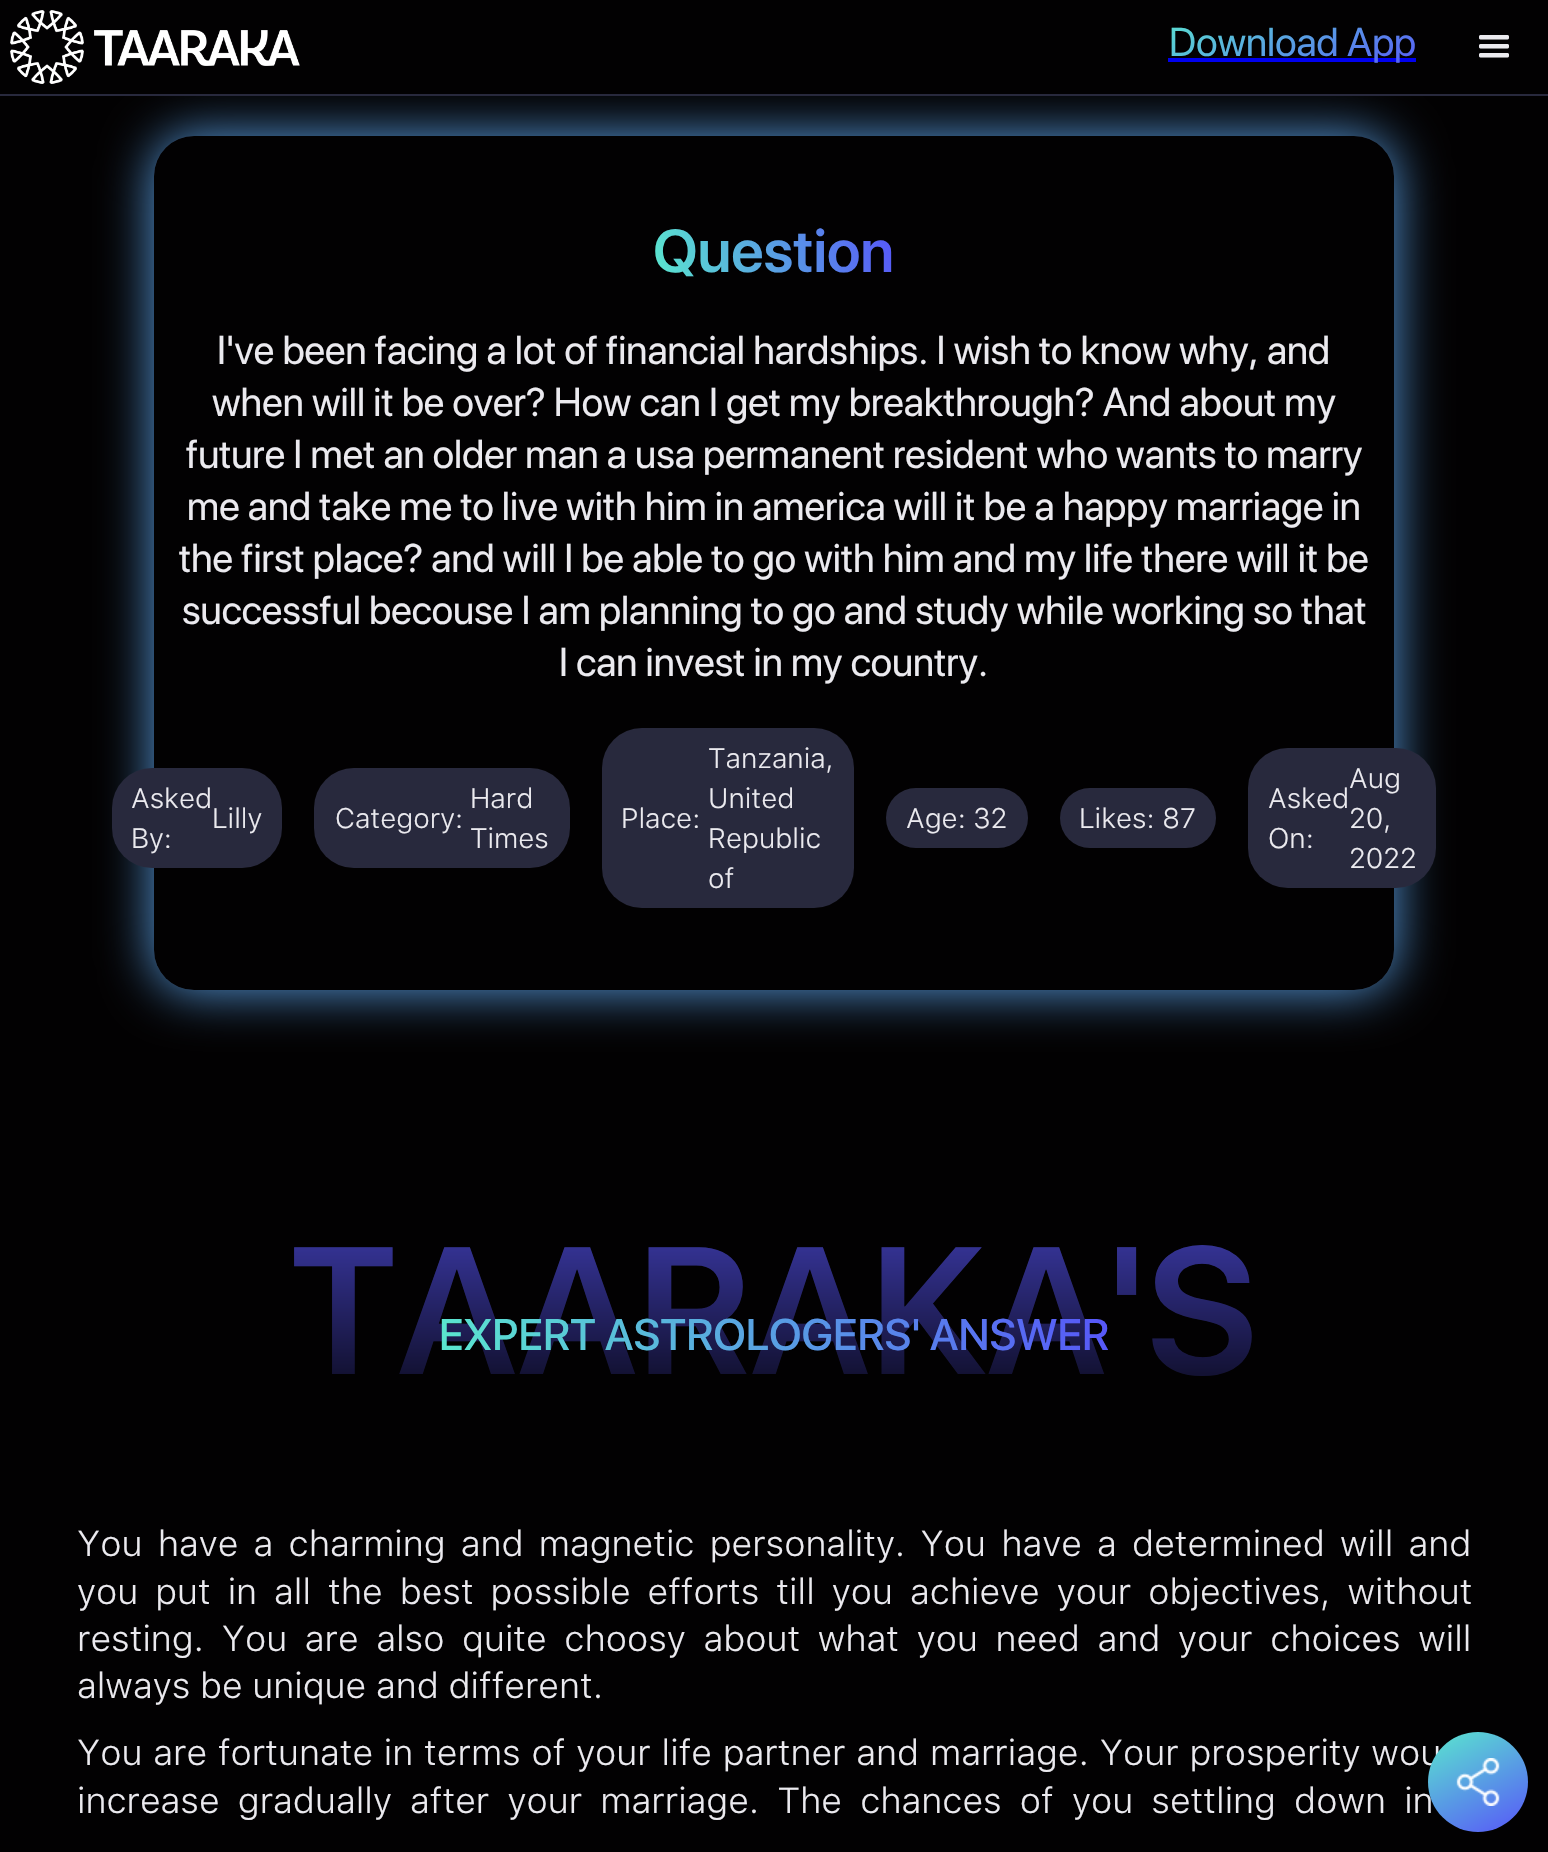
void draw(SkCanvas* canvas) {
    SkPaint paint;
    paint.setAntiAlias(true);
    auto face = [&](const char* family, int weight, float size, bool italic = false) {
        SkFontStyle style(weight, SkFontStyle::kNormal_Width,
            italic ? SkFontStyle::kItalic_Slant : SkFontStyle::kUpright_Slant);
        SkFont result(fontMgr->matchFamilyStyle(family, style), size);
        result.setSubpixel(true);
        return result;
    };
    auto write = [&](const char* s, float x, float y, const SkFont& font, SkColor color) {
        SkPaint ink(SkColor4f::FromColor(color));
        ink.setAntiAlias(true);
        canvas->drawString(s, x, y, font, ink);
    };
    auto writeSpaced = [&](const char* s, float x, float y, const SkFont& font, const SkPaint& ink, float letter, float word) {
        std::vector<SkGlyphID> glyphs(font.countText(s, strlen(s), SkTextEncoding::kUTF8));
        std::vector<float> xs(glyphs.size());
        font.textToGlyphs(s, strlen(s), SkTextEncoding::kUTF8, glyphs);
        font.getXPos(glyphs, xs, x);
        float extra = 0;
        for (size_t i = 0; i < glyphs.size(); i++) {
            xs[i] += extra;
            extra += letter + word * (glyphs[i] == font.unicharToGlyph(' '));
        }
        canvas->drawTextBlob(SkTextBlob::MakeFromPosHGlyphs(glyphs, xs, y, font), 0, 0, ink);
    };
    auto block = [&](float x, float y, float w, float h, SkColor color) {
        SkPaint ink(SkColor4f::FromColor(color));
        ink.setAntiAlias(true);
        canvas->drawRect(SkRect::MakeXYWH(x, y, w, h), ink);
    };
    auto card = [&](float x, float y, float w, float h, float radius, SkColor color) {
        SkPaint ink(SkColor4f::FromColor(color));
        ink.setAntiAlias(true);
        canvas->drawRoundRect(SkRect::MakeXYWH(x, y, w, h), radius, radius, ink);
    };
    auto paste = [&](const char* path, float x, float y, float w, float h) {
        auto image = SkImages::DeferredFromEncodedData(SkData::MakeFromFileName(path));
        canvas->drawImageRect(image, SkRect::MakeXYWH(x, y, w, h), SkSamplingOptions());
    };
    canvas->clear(SkColorSetRGB(2, 1, 2));
    paint.setStyle(SkPaint::kStroke_Style);
    paint.setStrokeWidth(2);
    paint.setColor(SkColorSetRGB(40, 41, 61));
    canvas->drawRoundRect(SkRect::MakeXYWH(155, 137, 1238, 852), 39, 39, paint);
    canvas->save();
    canvas->clipRect(SkRect::MakeXYWH(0, 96, 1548, 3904));
    paint.setStyle(SkPaint::kFill_Style);
    paint.setColor(SkColorSetRGB(89, 159, 228));
    paint.setMaskFilter(SkMaskFilter::MakeBlur(kNormal_SkBlurStyle, 26));
    canvas->drawRoundRect(SkRect::MakeXYWH(154, 136, 1240, 854), 40, 40, paint);
    paint.setMaskFilter(nullptr);
    canvas->restore();
    block(0, 94, 1548, 2, SkColorSetRGB(40, 41, 61));
    paste("pic1.png", 10, 10, 74, 74);
    paste("pic2.png", 94, 30, 206, 36);
    block(1168, 58, 248, 4, SkColorSetRGB(0, 0, 238));
    auto kFont1 = face("SF Pro Display", 400, 40);
    {
        const SkColor colors[] = {SkColorSetRGB(90, 232, 206), SkColorSetRGB(87, 85, 249)};
        const float stops[] = {0, 1};
        const SkPoint ends[] = {{1251, -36}, {1334, 120}};
        paint.setShader(SkGradientShader::MakeLinear(ends, colors, stops, 2, SkTileMode::kClamp));
        paint.setAlpha(255);
    }
    canvas->drawString("Download App", 1169, 56, kFont1, paint);
    paste("pic3.png", 1479, 35, 30, 23);
    card(154, 136, 1240, 854, 40, SkColorSetRGB(2, 1, 2));
    auto kFont2 = face("SF Pro Display", 600, 60);
    {
        const SkColor colors[] = {SkColorSetRGB(90, 232, 206), SkColorSetRGB(87, 85, 249)};
        const float stops[] = {0, 1};
        const SkPoint ends[] = {{654, 286}, {894, 217}};
        paint.setShader(SkGradientShader::MakeLinear(ends, colors, stops, 2, SkTileMode::kClamp));
        paint.setAlpha(255);
    }
    canvas->drawString("Question", 653, 272, kFont2, paint);
    write("I've been facing a lot of financial hardships. I wish to know why, and", 217, 364, kFont1, SkColorSetRGB(235, 234, 239));
    write("when will it be over? How can I get my breakthrough? And about my", 212, 416, kFont1, SkColorSetRGB(235, 234, 239));
    write("future I met an older man a usa permanent resident who wants to marry", 186, 468, kFont1, SkColorSetRGB(235, 234, 239));
    write("me and take me to live with him in america will it be a happy marriage in", 187, 520, kFont1, SkColorSetRGB(235, 234, 239));
    write("the first place? and will I be able to go with him and my life there will it be", 179, 572, kFont1, SkColorSetRGB(235, 234, 239));
    write("successful becouse I am planning to go and study while working so that", 182, 624, kFont1, SkColorSetRGB(235, 234, 239));
    write("I can invest in my country.", 559, 676, kFont1, SkColorSetRGB(235, 234, 239));
    card(112, 768, 170, 100, 40, SkColorSetRGB(40, 41, 61));
    auto kFont3 = face("SF Pro Text", 300, 28);
    write("Asked", 131, 808, kFont3, SkColorSetRGB(235, 234, 239));
    write("By:", 131, 848, kFont3, SkColorSetRGB(235, 234, 239));
    write("Lilly", 212, 828, kFont3, SkColorSetRGB(235, 234, 239));
    card(314, 768, 256, 100, 40, SkColorSetRGB(40, 41, 61));
    write("Category:", 335, 828, kFont3, SkColorSetRGB(235, 234, 239));
    write("Hard", 470, 808, kFont3, SkColorSetRGB(235, 234, 239));
    write("Times", 470, 848, kFont3, SkColorSetRGB(235, 234, 239));
    card(602, 728, 252, 180, 40, SkColorSetRGB(40, 41, 61));
    write("Place:", 621, 828, kFont3, SkColorSetRGB(235, 234, 239));
    write("Tanzania,", 708, 768, kFont3, SkColorSetRGB(235, 234, 239));
    write("United", 708, 808, kFont3, SkColorSetRGB(235, 234, 239));
    write("Republic", 708, 848, kFont3, SkColorSetRGB(235, 234, 239));
    write("of", 708, 888, kFont3, SkColorSetRGB(235, 234, 239));
    card(886, 788, 142, 60, 30, SkColorSetRGB(40, 41, 61));
    write("Age: 32", 906, 828, kFont3, SkColorSetRGB(235, 234, 239));
    card(1060, 788, 156, 60, 30, SkColorSetRGB(40, 41, 61));
    write("Likes: 87", 1079, 828, kFont3, SkColorSetRGB(235, 234, 239));
    card(1248, 748, 188, 140, 40, SkColorSetRGB(40, 41, 61));
    write("Asked", 1268, 808, kFont3, SkColorSetRGB(235, 234, 239));
    write("On:", 1268, 848, kFont3, SkColorSetRGB(235, 234, 239));
    write("Aug", 1349, 788, kFont3, SkColorSetRGB(235, 234, 239));
    write("20,", 1349, 828, kFont3, SkColorSetRGB(235, 234, 239));
    write("2022", 1349, 868, kFont3, SkColorSetRGB(235, 234, 239));
    auto kFont4 = face("SF Pro Display", 600, 180);
    {
        const SkColor colors[] = {SkColorSetRGB(66, 64, 187), SkColorSetRGB(5, 4, 11), SkColorSetRGB(2, 1, 2)};
        const float stops[] = {0, 1, 1};
        const SkPoint ends[] = {{774, 1190}, {774, 1430}};
        paint.setShader(SkGradientShader::MakeLinear(ends, colors, stops, 3, SkTileMode::kClamp));
        paint.setAlpha(255);
    }
    canvas->drawString("TAARAKA'S", 290, 1374, kFont4, paint);
    auto kFont5 = face("SF Pro Display", 500, 44);
    {
        const SkColor colors[] = {SkColorSetRGB(90, 232, 206), SkColorSetRGB(87, 85, 249)};
        const float stops[] = {0, 1};
        const SkPoint ends[] = {{453, 1426}, {1095, 1242}};
        paint.setShader(SkGradientShader::MakeLinear(ends, colors, stops, 2, SkTileMode::kClamp));
        paint.setAlpha(255);
    }
    canvas->drawString("EXPERT ASTROLOGERS' ANSWER", 439, 1350, kFont5, paint);
    auto kFont6 = face("SF Pro Text", 300, 36);
    paint.setShader(nullptr);
    paint.setColor(SkColorSetRGB(235, 234, 239));
    writeSpaced("You have a charming and magnetic personality. You have a determined will and", 77, 1556, kFont6, paint, 0, 5.5f);
    writeSpaced("you put in all the best possible efforts till you achieve your objectives, without", 77, 1604, kFont6, paint, 0, 7.25f);
    writeSpaced("resting. You are also quite choosy about what you need and your choices will", 77, 1651, kFont6, paint, 0, 7.9f);
    write("always be unique and different.", 77, 1698, kFont6, SkColorSetRGB(235, 234, 239));
    writeSpaced("You are fortunate in terms of your life partner and marriage. Your prosperity wou", 77, 1765, kFont6, paint, 0, 1.1f);
    writeSpaced("increase gradually after your marriage. The chances of you settling down in", 77, 1813, kFont6, paint, 0, 8.5f);
    {
        const SkColor colors[] = {SkColorSetRGB(90, 232, 206), SkColorSetRGB(87, 85, 249)};
        const float stops[] = {0, 1};
        const SkPoint ends[] = {{1446, 1722}, {1510, 1842}};
        paint.setShader(SkGradientShader::MakeLinear(ends, colors, stops, 2, SkTileMode::kClamp));
        paint.setAlpha(255);
    }
    canvas->drawCircle(1478, 1782, 50, paint);
    paste("pic4.png", 1456, 1758, 44, 48);
}
